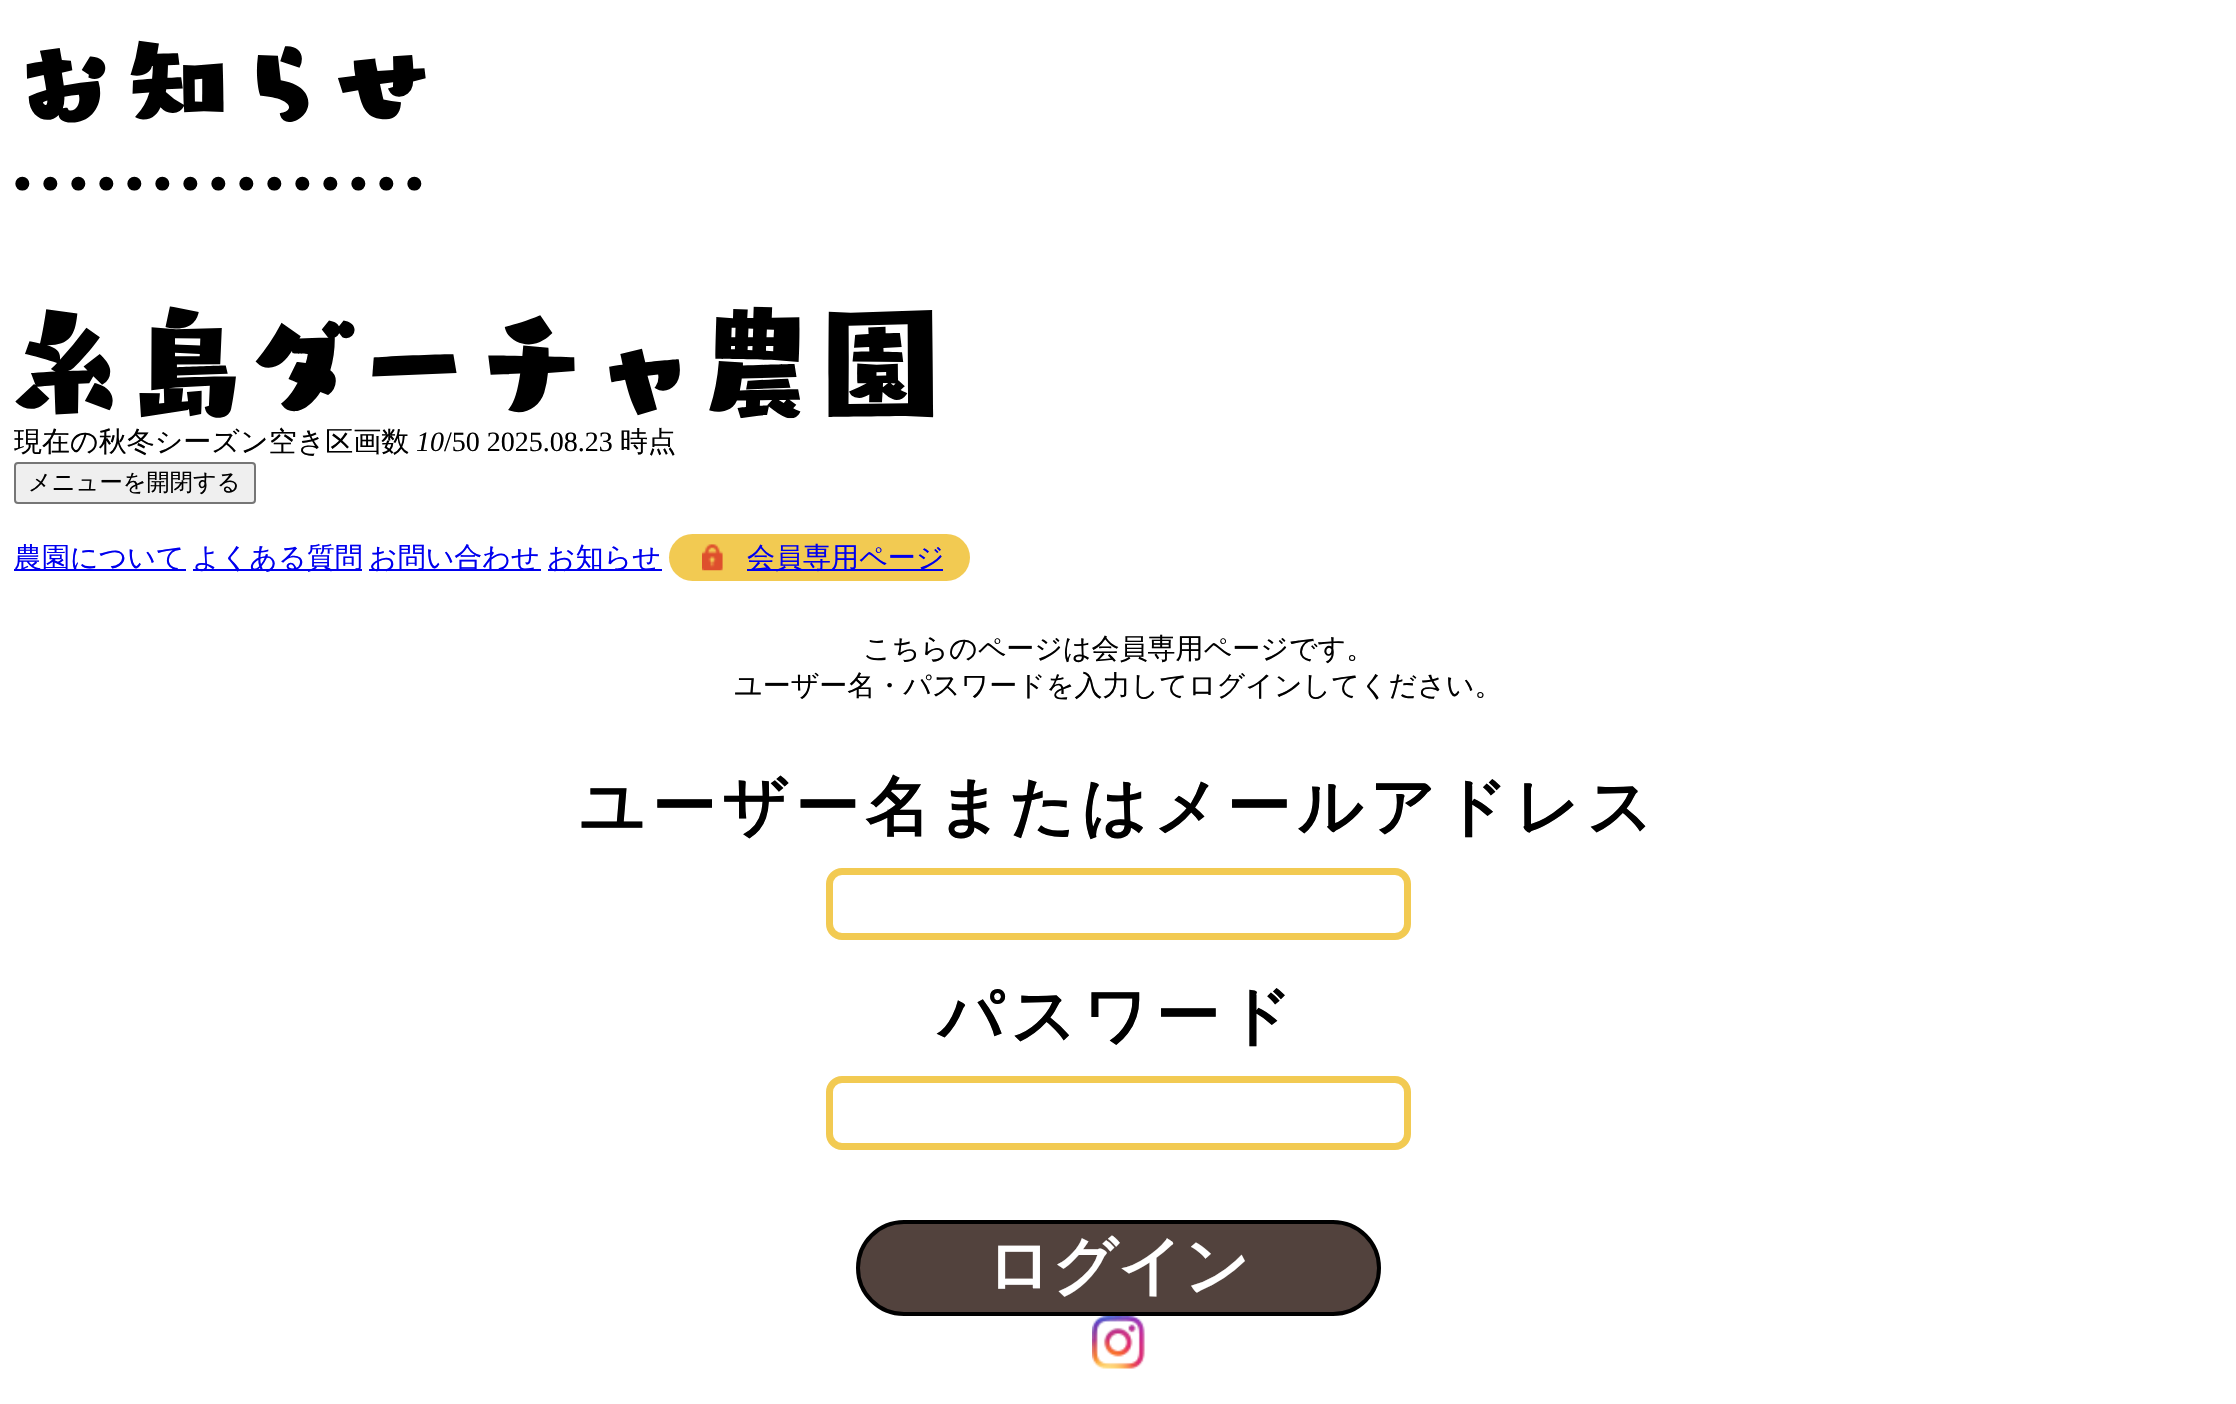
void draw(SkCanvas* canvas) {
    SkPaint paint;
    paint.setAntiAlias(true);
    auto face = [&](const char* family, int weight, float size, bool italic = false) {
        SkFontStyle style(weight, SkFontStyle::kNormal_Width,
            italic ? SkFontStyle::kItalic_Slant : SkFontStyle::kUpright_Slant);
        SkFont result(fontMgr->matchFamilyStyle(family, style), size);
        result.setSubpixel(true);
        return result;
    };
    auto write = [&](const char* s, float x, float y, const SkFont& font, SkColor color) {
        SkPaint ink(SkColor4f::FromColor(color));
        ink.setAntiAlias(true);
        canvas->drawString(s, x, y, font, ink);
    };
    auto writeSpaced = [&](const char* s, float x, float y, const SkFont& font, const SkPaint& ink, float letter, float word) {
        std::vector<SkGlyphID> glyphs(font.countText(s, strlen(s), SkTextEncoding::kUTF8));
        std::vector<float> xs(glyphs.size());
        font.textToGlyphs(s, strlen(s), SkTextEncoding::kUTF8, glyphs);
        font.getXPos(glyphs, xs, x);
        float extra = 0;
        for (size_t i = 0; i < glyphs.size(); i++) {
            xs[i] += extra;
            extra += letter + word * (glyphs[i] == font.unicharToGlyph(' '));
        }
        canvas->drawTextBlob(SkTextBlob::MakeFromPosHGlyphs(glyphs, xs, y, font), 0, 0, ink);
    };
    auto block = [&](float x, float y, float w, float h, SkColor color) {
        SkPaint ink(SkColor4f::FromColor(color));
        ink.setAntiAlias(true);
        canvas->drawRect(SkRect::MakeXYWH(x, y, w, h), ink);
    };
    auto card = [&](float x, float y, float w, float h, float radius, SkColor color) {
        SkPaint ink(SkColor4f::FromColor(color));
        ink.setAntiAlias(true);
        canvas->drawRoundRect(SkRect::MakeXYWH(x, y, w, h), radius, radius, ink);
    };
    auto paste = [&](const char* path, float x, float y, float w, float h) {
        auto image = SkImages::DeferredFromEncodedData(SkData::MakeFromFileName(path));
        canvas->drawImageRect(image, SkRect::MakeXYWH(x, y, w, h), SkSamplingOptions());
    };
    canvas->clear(SK_ColorWHITE);
    paste("pic1.png", 15, 40, 411, 151);
    paste("pic2.png", 15, 306, 919, 113);
    auto kFont1 = face("WenQuanYi Zen Hei", 500, 28);
    write("現在の秋冬シーズン空き区画数", 14, 451, kFont1, SK_ColorBLACK);
    auto kFont2 = face("Liberation Serif", 400, 28, true);
    write("10", 416, 451, kFont2, SK_ColorBLACK);
    auto kFont3 = face("Liberation Serif", 400, 28);
    write("/50 2025.08.23", 444, 451, kFont3, SK_ColorBLACK);
    write("時点", 620, 451, kFont1, SK_ColorBLACK);
    paint.setColor(SkColorSetRGB(239, 239, 239));
    canvas->drawRoundRect(SkRect::MakeXYWH(15, 463, 240, 40), 3, 3, paint);
    paint.setStyle(SkPaint::kStroke_Style);
    paint.setStrokeWidth(2);
    paint.setColor(SkColorSetRGB(118, 118, 118));
    canvas->drawRoundRect(SkRect::MakeXYWH(15, 463, 240, 40), 3, 3, paint);
    auto kFont4 = face("WenQuanYi Zen Hei", 500, 23.25f);
    write("メニューを開閉する", 28, 490, kFont4, SK_ColorBLACK);
    block(14, 569, 172, 2, SkColorSetRGB(0, 0, 238));
    write("農園について", 14, 567, kFont1, SkColorSetRGB(0, 0, 238));
    block(193, 569, 169, 2, SkColorSetRGB(0, 0, 238));
    write("よくある質問", 192, 567, kFont1, SkColorSetRGB(0, 0, 238));
    block(369, 569, 172, 2, SkColorSetRGB(0, 0, 238));
    write("お問い合わせ", 369, 567, kFont1, SkColorSetRGB(0, 0, 238));
    block(548, 569, 114, 2, SkColorSetRGB(0, 0, 238));
    write("お知らせ", 547, 567, kFont1, SkColorSetRGB(0, 0, 238));
    card(669, 534, 301, 47, 23.5f, SkColorSetRGB(242, 202, 82));
    paste("pic3.png", 702, 544, 21, 27);
    block(747, 569, 196, 2, SkColorSetRGB(0, 0, 238));
    write("会員専用ページ", 747, 567, kFont1, SkColorSetRGB(0, 0, 238));
    write("こちらのページは会員専用ページです。", 863, 658, kFont1, SK_ColorBLACK);
    write("ユーザー名・パスワードを入力してログインしてください。", 734, 695, kFont1, SK_ColorBLACK);
    auto kFont5 = face("WenQuanYi Zen Hei", 700, 64.4f);
    paint.setStyle(SkPaint::kFill_Style);
    paint.setColor(SK_ColorBLACK);
    writeSpaced("ユーザー名またはメールアドレス", 579, 829, kFont5, paint, 6.5f, 0);
    paint.setStyle(SkPaint::kStroke_Style);
    paint.setStrokeWidth(7);
    paint.setColor(SkColorSetRGB(242, 202, 82));
    canvas->drawRoundRect(SkRect::MakeXYWH(829.5f, 871.5f, 578, 65), 12.5f, 12.5f, paint);
    paint.setStyle(SkPaint::kFill_Style);
    paint.setColor(SK_ColorBLACK);
    writeSpaced("パスワード", 938, 1038, kFont5, paint, 6.5f, 0);
    paint.setStyle(SkPaint::kStroke_Style);
    paint.setColor(SkColorSetRGB(242, 202, 82));
    canvas->drawRoundRect(SkRect::MakeXYWH(829.5f, 1079.5f, 578, 67), 12.5f, 12.5f, paint);
    paint.setStyle(SkPaint::kFill_Style);
    paint.setColor(SkColorSetRGB(82, 66, 61));
    canvas->drawRoundRect(SkRect::MakeXYWH(858, 1222, 521, 92), 46, 46, paint);
    paint.setStyle(SkPaint::kStroke_Style);
    paint.setStrokeWidth(4);
    paint.setColor(SK_ColorBLACK);
    canvas->drawRoundRect(SkRect::MakeXYWH(858, 1222, 521, 92), 46, 46, paint);
    write("ログイン", 986, 1288, kFont5, SK_ColorWHITE);
    paste("pic4.png", 1092, 1316, 53, 53);
}
